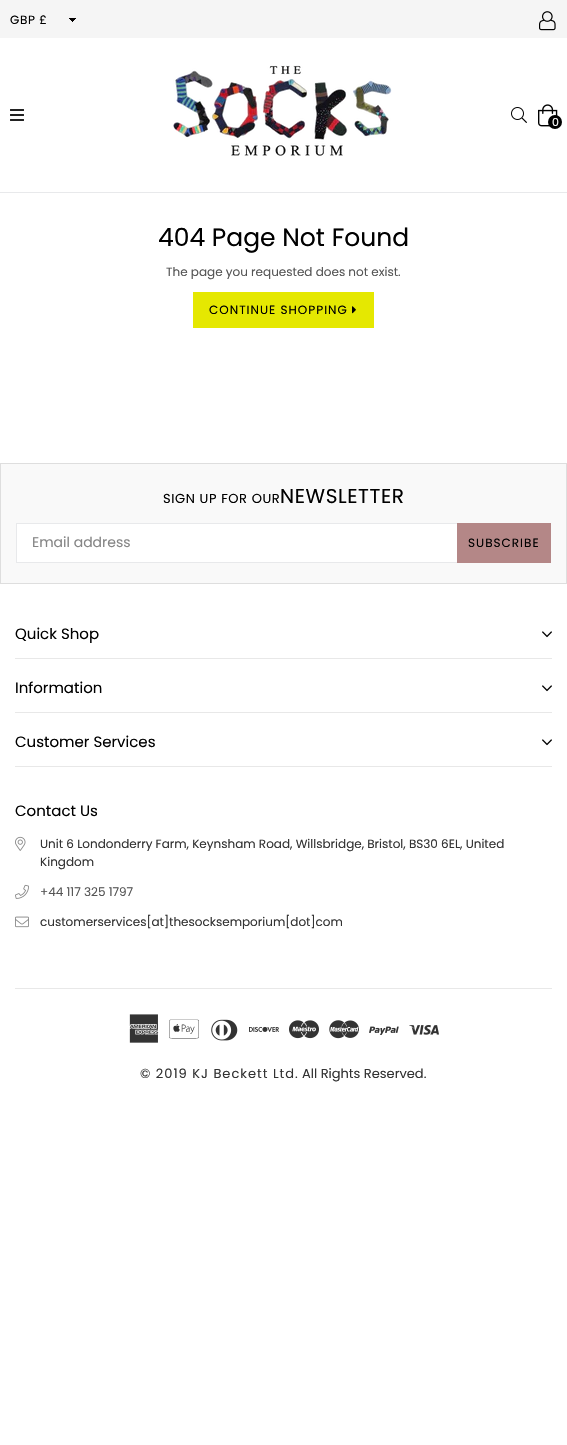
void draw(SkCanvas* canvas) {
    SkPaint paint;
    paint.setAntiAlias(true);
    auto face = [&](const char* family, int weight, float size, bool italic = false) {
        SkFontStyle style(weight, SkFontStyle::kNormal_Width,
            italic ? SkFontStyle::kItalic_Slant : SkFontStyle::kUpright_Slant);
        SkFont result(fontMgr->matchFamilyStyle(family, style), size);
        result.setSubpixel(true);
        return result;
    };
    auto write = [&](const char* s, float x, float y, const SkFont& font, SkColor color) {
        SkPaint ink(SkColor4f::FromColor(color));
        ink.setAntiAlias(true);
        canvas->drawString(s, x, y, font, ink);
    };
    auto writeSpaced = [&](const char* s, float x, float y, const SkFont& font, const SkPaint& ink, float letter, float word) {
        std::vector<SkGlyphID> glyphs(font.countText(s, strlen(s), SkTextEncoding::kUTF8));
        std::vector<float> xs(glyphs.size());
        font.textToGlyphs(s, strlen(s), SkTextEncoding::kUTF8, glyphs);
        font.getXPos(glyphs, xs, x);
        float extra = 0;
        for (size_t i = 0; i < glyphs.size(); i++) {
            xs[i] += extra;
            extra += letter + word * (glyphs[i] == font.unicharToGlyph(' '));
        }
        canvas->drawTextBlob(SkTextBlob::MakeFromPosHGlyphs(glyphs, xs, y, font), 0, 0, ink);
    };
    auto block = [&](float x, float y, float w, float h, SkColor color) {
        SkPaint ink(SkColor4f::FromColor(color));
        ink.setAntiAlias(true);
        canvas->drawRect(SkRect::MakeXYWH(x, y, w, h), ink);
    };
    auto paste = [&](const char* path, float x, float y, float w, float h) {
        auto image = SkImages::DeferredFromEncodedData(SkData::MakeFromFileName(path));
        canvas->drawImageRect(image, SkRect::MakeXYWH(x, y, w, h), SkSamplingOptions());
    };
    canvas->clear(SK_ColorWHITE);
    block(0, 0, 567, 38, SkColorSetRGB(245, 245, 245));
    paste("pic1.png", 69, 18, 7, 4);
    auto kFont1 = face("Poppins", 400, 12);
    paint.setColor(SK_ColorBLACK);
    writeSpaced("GBP £", 10, 24, kFont1, paint, 0.6f, 0);
    paste("pic2.png", 539, 11, 17, 20);
    block(0, 192, 567, 1, SkColorSetRGB(232, 233, 235));
    paste("pic3.png", 10, 109, 14, 12);
    paste("pic4.png", 173, 65, 219, 91);
    paste("pic5.png", 511, 107, 16, 16);
    paste("pic6.png", 538, 104, 20, 23);
    canvas->drawCircle(555, 122, 7, paint);
    auto kFont2 = face("Poppins", 400, 11);
    write("0", 552, 126, kFont2, SK_ColorWHITE);
    auto kFont3 = face("Poppins", 400, 25);
    write("404 Page Not Found", 158, 246, kFont3, SK_ColorBLACK);
    write("The page you requested does not exist.", 166, 276, kFont1, SkColorSetRGB(85, 85, 85));
    block(193, 292, 181, 36, SkColorSetRGB(229, 232, 1));
    writeSpaced("CONTINUE SHOPPING", 209, 314, kFont1, paint, 1, 0);
    paste("pic7.png", 352, 306, 4, 8);
    paint.setColor(SkColorSetRGB(249, 249, 249));
    canvas->drawRect(SkRect::MakeXYWH(0.5f, 463.5f, 566, 120), paint);
    paint.setStyle(SkPaint::kStroke_Style);
    paint.setStrokeWidth(1);
    paint.setColor(SkColorSetRGB(222, 222, 222));
    canvas->drawRect(SkRect::MakeXYWH(0.5f, 463.5f, 566, 120), paint);
    auto kFont4 = face("Poppins", 400, 13);
    paint.setStyle(SkPaint::kFill_Style);
    paint.setColor(SK_ColorBLACK);
    writeSpaced("SIGN UP FOR OUR", 163, 503, kFont4, paint, 0.6f, 0);
    auto kFont5 = face("Poppins", 400, 20);
    writeSpaced("NEWSLETTER", 280, 503, kFont5, paint, 0.6f, 0);
    block(17, 524, 440, 38, SK_ColorWHITE);
    block(16, 523, 441, 1, SkColorSetRGB(232, 233, 235));
    block(16, 562, 441, 1, SkColorSetRGB(232, 233, 235));
    block(16, 523, 1, 40, SkColorSetRGB(232, 233, 235));
    auto kFont6 = face("Poppins", 400, 14);
    write("Email address", 32, 547, kFont6, SkColorSetRGB(133, 133, 133));
    block(457, 523, 94, 40, SkColorSetRGB(180, 135, 135));
    writeSpaced("SUBSCRIBE", 468, 547, kFont1, paint, 1, 0);
    auto kFont7 = face("Poppins", 400, 15);
    write("Quick Shop", 15, 639, kFont7, SK_ColorBLACK);
    paste("pic8.png", 542, 631, 10, 7);
    block(15, 658, 537, 1, SkColorSetRGB(232, 232, 232));
    write("Information", 15, 693, kFont7, SK_ColorBLACK);
    paste("pic8.png", 542, 685, 10, 7);
    block(15, 712, 537, 1, SkColorSetRGB(232, 232, 232));
    write("Customer Services", 15, 747, kFont7, SK_ColorBLACK);
    paste("pic8.png", 542, 739, 10, 7);
    block(15, 766, 537, 1, SkColorSetRGB(232, 232, 232));
    write("Contact Us", 15, 816, kFont7, SK_ColorBLACK);
    paste("pic9.png", 15, 836, 11, 15);
    write("Unit 6 Londonderry Farm, Keynsham Road, Willsbridge, Bristol, BS30 6EL, United", 40, 848, kFont1, SkColorSetRGB(51, 51, 51));
    write("Kingdom", 40, 866, kFont1, SkColorSetRGB(51, 51, 51));
    paste("pic10.png", 15, 884, 14, 15);
    write("+44 117 325 1797", 40, 896, kFont1, SkColorSetRGB(85, 85, 85));
    paste("pic11.png", 15, 916, 14, 12);
    write("customerservices[at]thesocksemporium[dot]com", 40, 926, kFont1, SkColorSetRGB(51, 51, 51));
    block(15, 988, 537, 1, SkColorSetRGB(232, 232, 232));
    paste("pic12.png", 129, 1014, 30, 29);
    paste("pic13.png", 169, 1019, 30, 20);
    paste("pic14.png", 211, 1019, 27, 22);
    paste("pic15.png", 249, 1026, 30, 6);
    paste("pic16.png", 289, 1020, 30, 19);
    paste("pic17.png", 329, 1020, 30, 19);
    paste("pic18.png", 369, 1026, 30, 9);
    paste("pic19.png", 409, 1025, 30, 10);
    paint.setColor(SkColorSetRGB(51, 51, 51));
    writeSpaced("© 2019 KJ Beckett Ltd.", 140, 1078, kFont4, paint, 1, 0);
    write("All Rights Reserved.", 302, 1078, kFont4, SkColorSetRGB(51, 51, 51));
}
